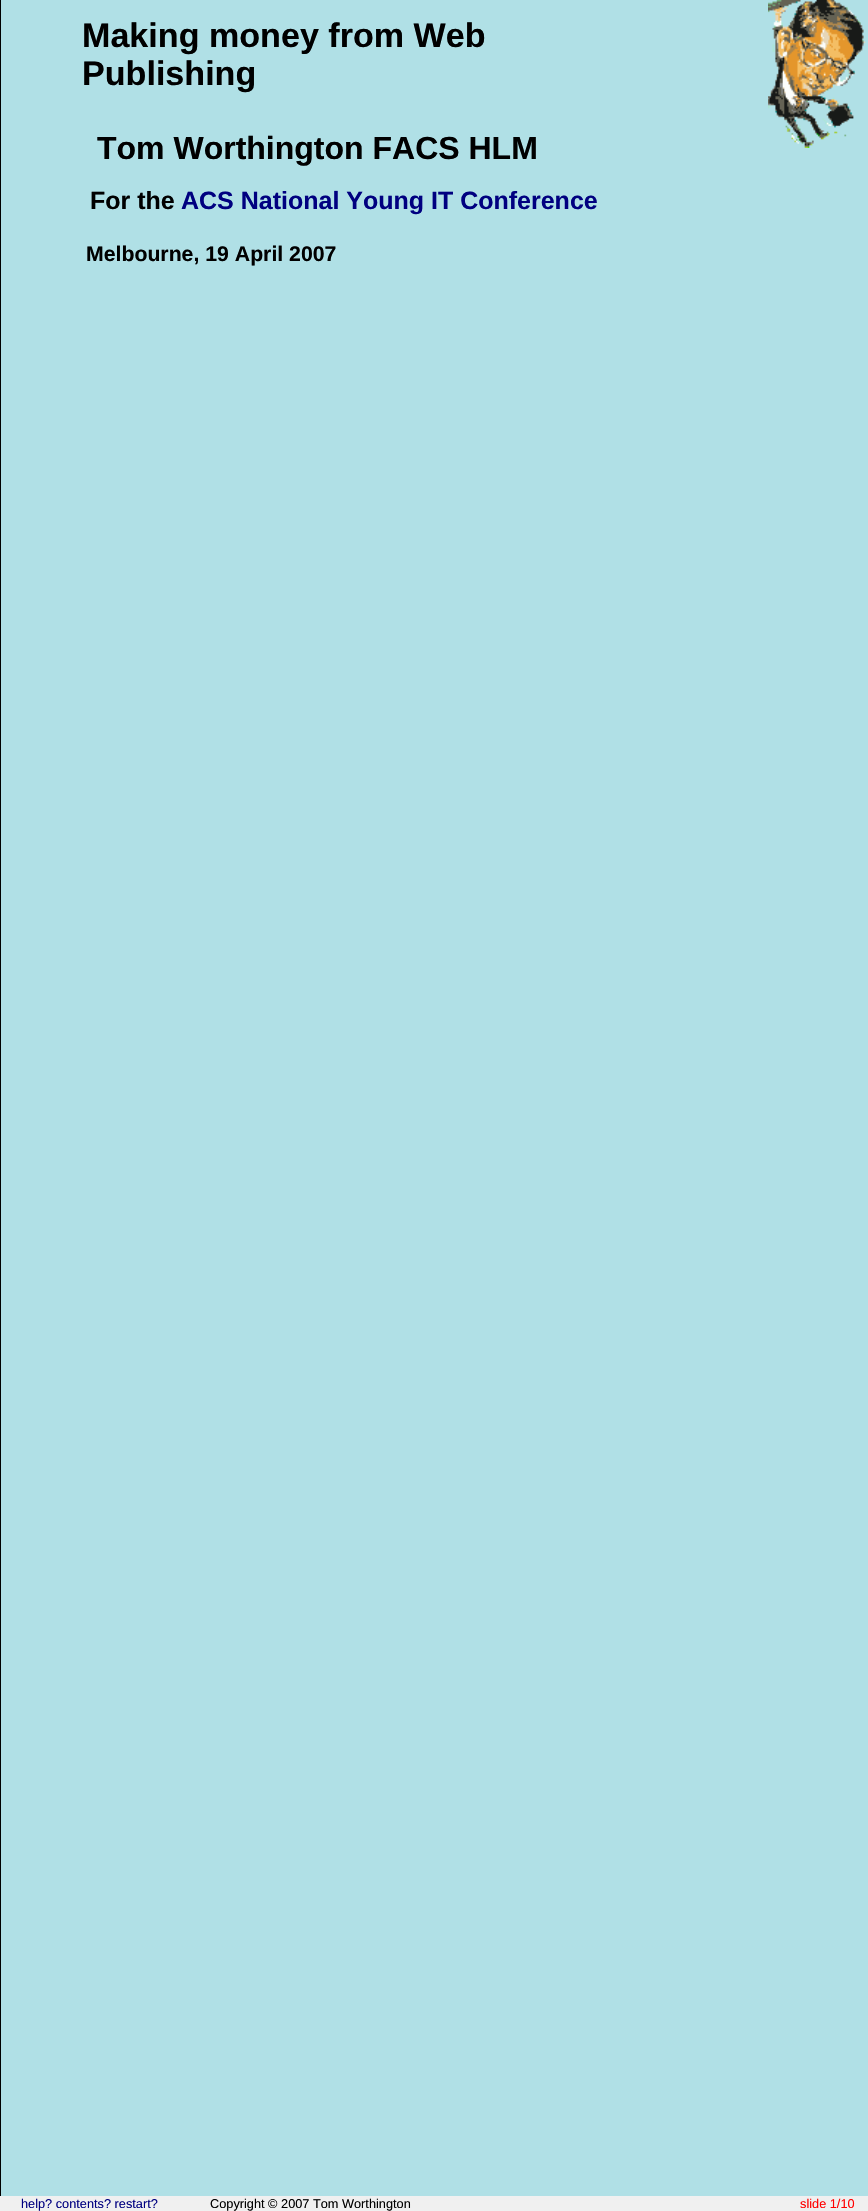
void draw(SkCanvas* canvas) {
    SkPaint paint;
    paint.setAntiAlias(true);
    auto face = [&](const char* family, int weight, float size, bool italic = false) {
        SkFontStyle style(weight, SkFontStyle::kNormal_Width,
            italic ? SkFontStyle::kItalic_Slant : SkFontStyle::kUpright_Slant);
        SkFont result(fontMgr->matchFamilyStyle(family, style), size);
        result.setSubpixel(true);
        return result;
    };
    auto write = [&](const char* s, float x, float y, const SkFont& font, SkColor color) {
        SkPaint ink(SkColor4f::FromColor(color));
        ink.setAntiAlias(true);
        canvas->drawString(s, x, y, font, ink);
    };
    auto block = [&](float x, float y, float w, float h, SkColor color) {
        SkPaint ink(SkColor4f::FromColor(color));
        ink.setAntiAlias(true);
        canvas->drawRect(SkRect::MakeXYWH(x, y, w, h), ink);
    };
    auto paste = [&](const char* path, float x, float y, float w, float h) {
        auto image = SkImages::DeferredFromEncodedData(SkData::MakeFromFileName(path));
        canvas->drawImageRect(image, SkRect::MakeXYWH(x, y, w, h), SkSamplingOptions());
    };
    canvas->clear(SkColorSetRGB(176, 224, 230));
    block(0, 0, 1, 2196, SK_ColorBLACK);
    auto kFont1 = face("Liberation Sans", 700, 34.1f);
    write("Making money from Web", 82, 47, kFont1, SK_ColorBLACK);
    write("Publishing", 82, 85, kFont1, SK_ColorBLACK);
    paste("pic1.png", 768, 0, 98, 148);
    auto kFont2 = face("Liberation Sans", 700, 32);
    write("Tom Worthington FACS HLM", 97, 159, kFont2, SK_ColorBLACK);
    auto kFont3 = face("Liberation Sans", 700, 25);
    write("For the", 90, 209, kFont3, SK_ColorBLACK);
    write("ACS National Young IT Conference", 181, 209, kFont3, SkColorSetRGB(0, 0, 128));
    auto kFont4 = face("Liberation Sans", 700, 21.25f);
    write("Melbourne, 19 April 2007", 86, 261, kFont4, SK_ColorBLACK);
    block(0, 2196, 868, 15, SkColorSetRGB(240, 240, 240));
    auto kFont5 = face("Liberation Sans", 400, 12.75f);
    write("help? contents? restart?", 21, 2208, kFont5, SkColorSetRGB(0, 0, 128));
    write("Copyright © 2007 Tom Worthington", 210, 2208, kFont5, SK_ColorBLACK);
    write("slide 1/10", 800, 2208, kFont5, SkColorSetRGB(255, 0, 0));
}
